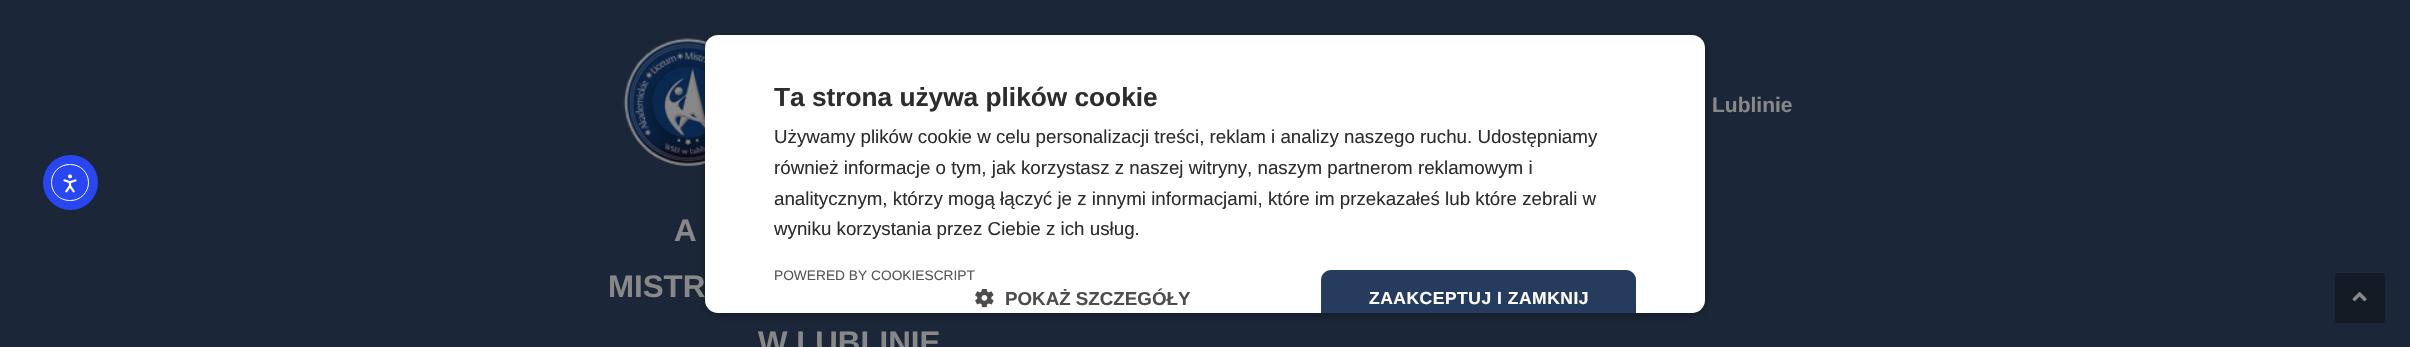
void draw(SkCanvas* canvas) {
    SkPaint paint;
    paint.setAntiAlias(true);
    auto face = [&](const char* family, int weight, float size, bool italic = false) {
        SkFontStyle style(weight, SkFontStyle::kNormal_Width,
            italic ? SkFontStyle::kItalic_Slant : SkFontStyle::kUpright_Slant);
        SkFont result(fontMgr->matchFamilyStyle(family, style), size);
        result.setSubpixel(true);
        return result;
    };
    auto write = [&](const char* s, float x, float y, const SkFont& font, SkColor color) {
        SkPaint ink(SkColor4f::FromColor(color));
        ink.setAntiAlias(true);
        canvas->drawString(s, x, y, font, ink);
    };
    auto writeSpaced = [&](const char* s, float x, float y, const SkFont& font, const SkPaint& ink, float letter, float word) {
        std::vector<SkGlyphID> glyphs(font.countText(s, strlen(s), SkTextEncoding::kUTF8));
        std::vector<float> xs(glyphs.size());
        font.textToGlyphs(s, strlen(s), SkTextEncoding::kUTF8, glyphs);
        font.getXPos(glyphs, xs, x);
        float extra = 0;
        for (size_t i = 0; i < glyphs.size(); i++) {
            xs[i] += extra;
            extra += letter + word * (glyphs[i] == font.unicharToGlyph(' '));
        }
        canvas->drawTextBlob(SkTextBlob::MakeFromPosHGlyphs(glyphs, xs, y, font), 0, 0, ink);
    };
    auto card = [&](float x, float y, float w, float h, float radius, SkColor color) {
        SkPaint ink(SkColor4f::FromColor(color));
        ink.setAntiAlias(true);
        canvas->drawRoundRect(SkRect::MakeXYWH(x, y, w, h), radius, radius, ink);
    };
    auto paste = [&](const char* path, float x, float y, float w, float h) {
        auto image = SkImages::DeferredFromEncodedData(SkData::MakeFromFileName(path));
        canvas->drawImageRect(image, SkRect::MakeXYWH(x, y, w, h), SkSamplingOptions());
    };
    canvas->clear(SkColorSetRGB(27, 39, 56));
    paste("pic3.png", 623, 38, 84, 129);
    paint.setColor(SkColorSetARGB(89, 0, 0, 0));
    paint.setMaskFilter(SkMaskFilter::MakeBlur(kNormal_SkBlurStyle, 5));
    canvas->drawRoundRect(SkRect::MakeXYWH(706, 38, 1000, 277), 13, 13, paint);
    paint.setMaskFilter(nullptr);
    card(705, 35, 1000, 278, 13, SK_ColorWHITE);
    auto kFont1 = face("Liberation Sans", 700, 26.25f);
    write("Ta strona używa plików cookie", 774, 106, kFont1, SkColorSetRGB(45, 45, 45));
    auto kFont2 = face("Liberation Sans", 400, 18.75f);
    write("Używamy plików cookie w celu personalizacji treści, reklam i analizy naszego ruchu. Udostępniamy", 774, 143, kFont2, SkColorSetRGB(45, 45, 45));
    write("również informacje o tym, jak korzystasz z naszej witryny, naszym partnerom reklamowym i", 774, 174, kFont2, SkColorSetRGB(45, 45, 45));
    write("analitycznym, którzy mogą łączyć je z innymi informacjami, które im przekazałeś lub które zebrali w", 774, 205, kFont2, SkColorSetRGB(45, 45, 45));
    write("wyniku korzystania przez Ciebie z ich usług.", 774, 235, kFont2, SkColorSetRGB(45, 45, 45));
    auto kFont3 = face("Liberation Sans", 400, 13.75f);
    write("POWERED BY COOKIESCRIPT", 774, 280, kFont3, SkColorSetRGB(87, 87, 87));
    paste("pic1.png", 975, 289, 19, 19);
    auto kFont4 = face("Liberation Sans", 700, 18.75f);
    write("POKAŻ SZCZEGÓŁY", 1005, 305, kFont4, SkColorSetRGB(77, 77, 77));
    paint.setColor(SkColorSetRGB(38, 60, 94));
    canvas->drawPath(SkPathBuilder().moveTo(1331, 270).lineTo(1626, 270).cubicTo(1631.5f, 270, 1636, 274.5f, 1636, 280).lineTo(1636, 313).lineTo(1321, 313).lineTo(1321, 280).cubicTo(1321, 274.5f, 1325.5f, 270, 1331, 270).close().detach(), paint);
    auto kFont5 = face("Liberation Sans", 700, 17.5f);
    paint.setColor(SK_ColorWHITE);
    writeSpaced("ZAAKCEPTUJ I ZAMKNIJ", 1369, 304, kFont5, paint, 0.5f, 0);
    paint.setColor(SkColorSetRGB(40, 71, 243));
    canvas->drawCircle(70.5f, 182.5f, 27.5f, paint);
    paint.setStyle(SkPaint::kStroke_Style);
    paint.setStrokeWidth(1);
    paint.setColor(SK_ColorWHITE);
    canvas->drawRoundRect(SkRect::MakeXYWH(51.5f, 164.5f, 37, 36), 18, 18, paint);
    paste("pic2.png", 63, 174, 14, 19);
    auto kFont6 = face("Liberation Sans", 700, 21);
    write("Lublinie", 1712, 112, kFont6, SkColorSetRGB(136, 136, 136));
    auto kFont7 = face("Liberation Sans", 700, 31.25f);
    write("A", 674, 241, kFont7, SkColorSetRGB(136, 136, 136));
    write("MISTR", 608, 297, kFont7, SkColorSetRGB(136, 136, 136));
    write("W LUBLINIE", 758, 353, kFont7, SkColorSetRGB(136, 136, 136));
    card(2335, 273, 50, 50, 2.5f, SkColorSetRGB(20, 27, 37));
    paste("pic4.png", 2352, 292, 15, 10);
}
